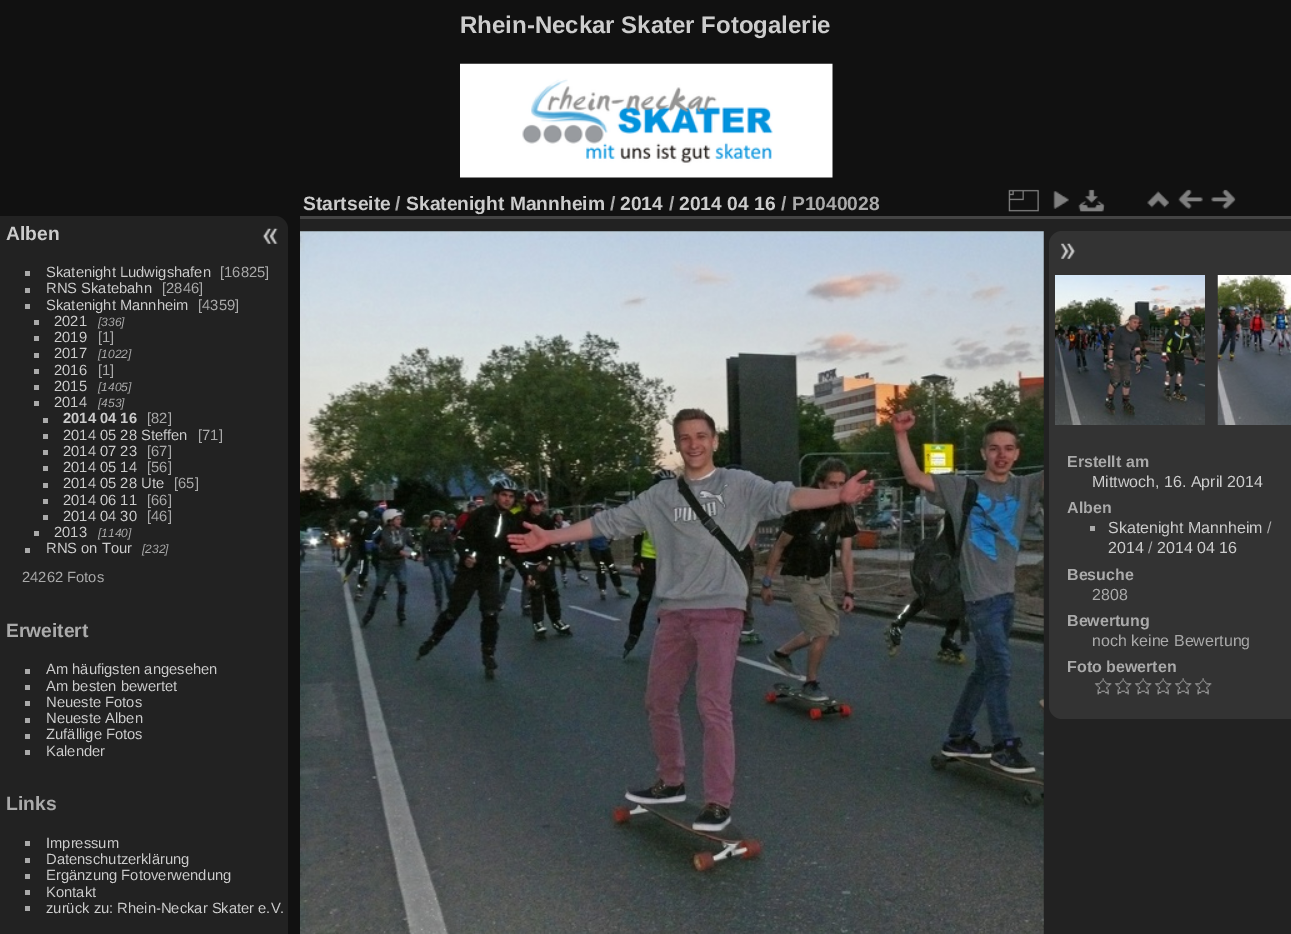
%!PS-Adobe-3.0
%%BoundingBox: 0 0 1291 934
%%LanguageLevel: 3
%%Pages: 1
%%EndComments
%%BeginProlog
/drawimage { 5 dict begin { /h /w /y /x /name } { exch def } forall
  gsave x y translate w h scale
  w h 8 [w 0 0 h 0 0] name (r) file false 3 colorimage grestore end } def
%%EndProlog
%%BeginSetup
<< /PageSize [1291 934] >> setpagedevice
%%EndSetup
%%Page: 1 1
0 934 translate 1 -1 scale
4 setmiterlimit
0.067 setgray
0 0 1291 934 rectfill
(images/1.raw) 460 63 373 115 drawimage
0.133 setgray
newpath 0 216 moveto 275 216 lineto 282 216 288 222 288 229 curveto 288 934 lineto 288 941 282 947 275 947 curveto 0 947 lineto closepath fill
0.667 setgray
25 271 5 5 rectfill
25 288 5 5 rectfill
25 304 5 5 rectfill
34 320 5 5 rectfill
34 336 5 5 rectfill
34 353 5 5 rectfill
34 369 5 5 rectfill
34 385 5 5 rectfill
34 401 5 5 rectfill
43 418 5 5 rectfill
43 434 5 5 rectfill
43 450 5 5 rectfill
43 466 5 5 rectfill
43 483 5 5 rectfill
43 499 5 5 rectfill
43 515 5 5 rectfill
34 531 5 5 rectfill
25 548 5 5 rectfill
25 669 5 5 rectfill
25 685 5 5 rectfill
25 701 5 5 rectfill
25 718 5 5 rectfill
25 734 5 5 rectfill
25 750 5 5 rectfill
25 841 5 5 rectfill
25 858 5 5 rectfill
25 874 5 5 rectfill
25 890 5 5 rectfill
25 906 5 5 rectfill
0.133 setgray
300 219 991 715 rectfill
0.267 setgray
300 216 991 3 rectfill
(images/2.raw) 1008 189 31 23 drawimage
(images/3.raw) 1053 191 16 18 drawimage
(images/4.raw) 1078 189 27 23 drawimage
(images/5.raw) 1147 191 22 17 drawimage
(images/6.raw) 1178 189 25 20 drawimage
(images/7.raw) 1211 189 25 20 drawimage
(images/8.raw) 300 231 744 703 drawimage
0.2 setgray
newpath 1062 231 moveto 1291 231 lineto 1291 719 lineto 1062 719 lineto 1055 719 1049 713 1049 706 curveto 1049 244 lineto 1049 237 1055 231 1062 231 curveto closepath fill
(images/9.raw) 1060 243 16 16 drawimage
(images/10.raw) 1055 275 150 150 drawimage
(images/11.raw) 1217 275 74 150 drawimage
0.667 setgray
1090 526 5 5 rectfill
(images/12.raw) 1094 678 18 17 drawimage
(images/12.raw) 1114 678 18 17 drawimage
(images/12.raw) 1134 678 18 17 drawimage
(images/12.raw) 1154 678 18 17 drawimage
(images/12.raw) 1174 678 18 17 drawimage
(images/13.raw) 1194 678 18 17 drawimage
(images/14.raw) 262 228 16 16 drawimage
/LiberationSans-Bold [24 0 0 -24 0 0] selectfont
0.8 setgray
460 33 moveto (Rhein-Neckar Skater Fotogalerie) show
/LiberationSans-Bold [19.25 0 0 -19.25 0 0] selectfont
6 240 moveto (Alben) show
/LiberationSans-Regular [14.75 0 0 -14.75 0 0] selectfont
46 277 moveto (Skatenight Ludwigshafen) show
0.667 setgray
220 277 moveto ([16825]) show
0.8 setgray
46 293 moveto (RNS Skatebahn) show
0.667 setgray
162 293 moveto ([2846]) show
0.8 setgray
46 310 moveto (Skatenight Mannheim) show
0.667 setgray
198 310 moveto ([4359]) show
0.8 setgray
54 326 moveto (2021) show
/LiberationSans-Italic [12 0 0 -12 0 0] selectfont
0.667 setgray
98 326 moveto ([336]) show
/LiberationSans-Regular [14.75 0 0 -14.75 0 0] selectfont
0.8 setgray
54 342 moveto (2019) show
0.667 setgray
98 342 moveto ([1]) show
0.8 setgray
54 358 moveto (2017) show
/LiberationSans-Italic [12 0 0 -12 0 0] selectfont
0.667 setgray
98 358 moveto ([1022]) show
/LiberationSans-Regular [14.75 0 0 -14.75 0 0] selectfont
0.8 setgray
54 375 moveto (2016) show
0.667 setgray
98 375 moveto ([1]) show
0.8 setgray
54 391 moveto (2015) show
/LiberationSans-Italic [12 0 0 -12 0 0] selectfont
0.667 setgray
98 391 moveto ([1405]) show
/LiberationSans-Regular [14.75 0 0 -14.75 0 0] selectfont
0.8 setgray
54 407 moveto (2014) show
/LiberationSans-Italic [12 0 0 -12 0 0] selectfont
0.667 setgray
98 407 moveto ([453]) show
/LiberationSans-Bold [14.75 0 0 -14.75 0 0] selectfont
0.8 setgray
63 423 moveto (2014 04 16) show
/LiberationSans-Regular [14.75 0 0 -14.75 0 0] selectfont
0.667 setgray
147 423 moveto ([82]) show
0.8 setgray
63 440 moveto (2014 05 28 Steffen) show
0.667 setgray
198 440 moveto ([71]) show
0.8 setgray
63 456 moveto (2014 07 23) show
0.667 setgray
147 456 moveto ([67]) show
0.8 setgray
63 472 moveto (2014 05 14) show
0.667 setgray
147 472 moveto ([56]) show
0.8 setgray
63 488 moveto (2014 05 28 Ute) show
0.667 setgray
174 488 moveto ([65]) show
0.8 setgray
63 505 moveto (2014 06 11) show
0.667 setgray
147 505 moveto ([66]) show
0.8 setgray
63 521 moveto (2014 04 30) show
0.667 setgray
147 521 moveto ([46]) show
0.8 setgray
54 537 moveto (2013) show
/LiberationSans-Italic [12 0 0 -12 0 0] selectfont
0.667 setgray
98 537 moveto ([1140]) show
/LiberationSans-Regular [14.75 0 0 -14.75 0 0] selectfont
0.8 setgray
46 553 moveto (RNS on Tour) show
/LiberationSans-Italic [12 0 0 -12 0 0] selectfont
0.667 setgray
142 553 moveto ([232]) show
/LiberationSans-Regular [14.75 0 0 -14.75 0 0] selectfont
22 582 moveto (24262 Fotos) show
/LiberationSans-Bold [19.25 0 0 -19.25 0 0] selectfont
6 637 moveto (Erweitert) show
/LiberationSans-Regular [14.75 0 0 -14.75 0 0] selectfont
0.8 setgray
46 674 moveto (Am häufigsten angesehen) show
46 691 moveto (Am besten bewertet) show
46 707 moveto (Neueste Fotos) show
46 723 moveto (Neueste Alben) show
46 739 moveto (Zufällige Fotos) show
46 756 moveto (Kalender) show
/LiberationSans-Bold [19.25 0 0 -19.25 0 0] selectfont
0.667 setgray
6 810 moveto (Links) show
/LiberationSans-Regular [14.75 0 0 -14.75 0 0] selectfont
0.8 setgray
46 848 moveto (Impressum) show
46 864 moveto (Datenschutzerklärung) show
46 880 moveto (Ergänzung Fotoverwendung) show
46 897 moveto (Kontakt) show
46 913 moveto (zurück zu: Rhein-Neckar Skater e.V.) show
/LiberationSans-Bold [19.25 0 0 -19.25 0 0] selectfont
303 210 moveto (Startseite) show
0.667 setgray
395 210 moveto (/) show
0.8 setgray
406 210 moveto (Skatenight Mannheim) show
0.667 setgray
610 210 moveto (/) show
0.8 setgray
620 210 moveto (2014) show
0.667 setgray
669 210 moveto (/) show
0.8 setgray
679 210 moveto (2014 04 16) show
0.667 setgray
781 210 moveto (/ P1040028) show
/LiberationSans-Bold [16 0 0 -16 0 0] selectfont
1067 467 moveto (Erstellt am) show
/LiberationSans-Regular [16 0 0 -16 0 0] selectfont
0.8 setgray
1092 487 moveto (Mittwoch, 16. April 2014) show
/LiberationSans-Bold [16 0 0 -16 0 0] selectfont
0.667 setgray
1067 513 moveto (Alben) show
/LiberationSans-Regular [16 0 0 -16 0 0] selectfont
0.8 setgray
1108 533 moveto (Skatenight Mannheim) show
0.667 setgray
1267 533 moveto (/) show
0.8 setgray
1108 553 moveto (2014) show
0.667 setgray
1148 553 moveto (/) show
0.8 setgray
1157 553 moveto (2014 04 16) show
/LiberationSans-Bold [16 0 0 -16 0 0] selectfont
0.667 setgray
1067 580 moveto (Besuche) show
/LiberationSans-Regular [16 0 0 -16 0 0] selectfont
1092 600 moveto (2808) show
/LiberationSans-Bold [16 0 0 -16 0 0] selectfont
1067 626 moveto (Bewertung) show
/LiberationSans-Regular [16 0 0 -16 0 0] selectfont
1092 646 moveto (noch keine Bewertung) show
/LiberationSans-Bold [16 0 0 -16 0 0] selectfont
1067 672 moveto (Foto bewerten) show
showpage
%%EOF
